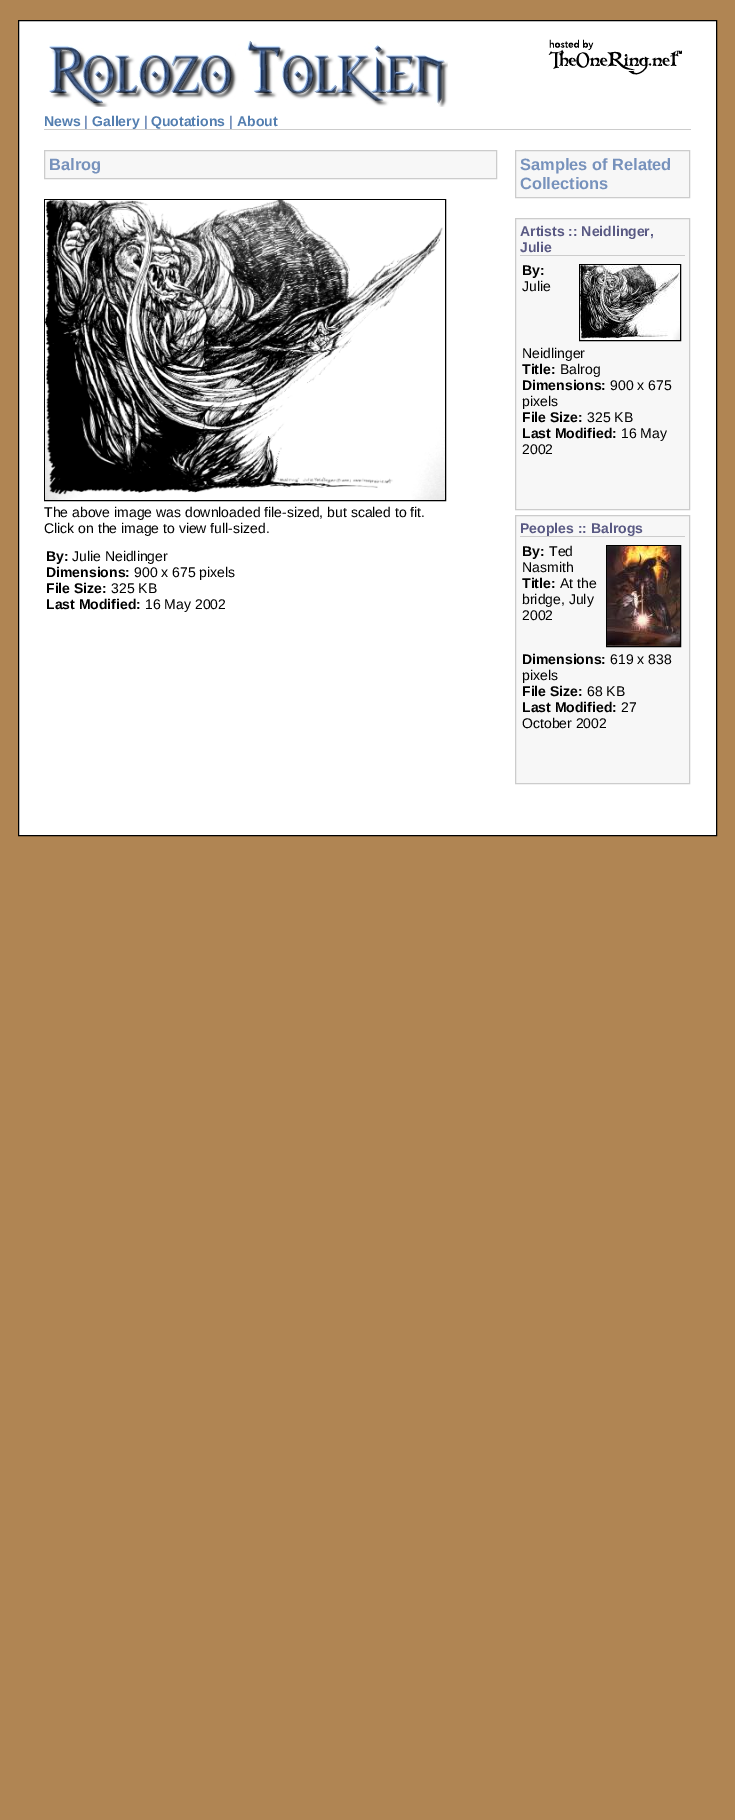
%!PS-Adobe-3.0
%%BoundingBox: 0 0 735 1820
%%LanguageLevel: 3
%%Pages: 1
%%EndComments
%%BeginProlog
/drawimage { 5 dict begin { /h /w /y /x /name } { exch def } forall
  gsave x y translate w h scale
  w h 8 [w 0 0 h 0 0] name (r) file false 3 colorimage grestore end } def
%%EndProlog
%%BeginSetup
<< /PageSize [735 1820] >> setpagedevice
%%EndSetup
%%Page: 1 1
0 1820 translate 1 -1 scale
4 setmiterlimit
0.69 0.522 0.325 setrgbcolor
0 0 735 1820 rectfill
1 setgray
newpath 18.5 20.5 moveto 716.5 20.5 lineto 716.5 835.5 lineto 18.5 835.5 lineto closepath gsave fill grestore
0 setgray
stroke
(images/1.raw) 49 40 399 67 drawimage
(images/2.raw) 548 39 134 36 drawimage
0.8 setgray
44 129 647 1 rectfill
0.969 setgray
newpath 44.5 150.5 moveto 496.5 150.5 lineto 496.5 178.5 lineto 44.5 178.5 lineto closepath gsave fill grestore
0.8 setgray
stroke
0 setgray
44.5 199.5 401 301 rectstroke
(images/3.raw) 45 200 400 300 drawimage
0.969 setgray
newpath 515.5 150.5 moveto 689.5 150.5 lineto 689.5 197.5 lineto 515.5 197.5 lineto closepath gsave fill grestore
0.8 setgray
stroke
0.969 setgray
newpath 515.5 218.5 moveto 689.5 218.5 lineto 689.5 509.5 lineto 515.5 509.5 lineto closepath gsave fill grestore
0.8 setgray
stroke
520 255 165 1 rectfill
0 setgray
579.5 264.5 101 76 rectstroke
(images/4.raw) 580 265 100 75 drawimage
0.969 setgray
newpath 515.5 515.5 moveto 689.5 515.5 lineto 689.5 783.5 lineto 515.5 783.5 lineto closepath gsave fill grestore
0.8 setgray
stroke
520 536 165 1 rectfill
0 setgray
606.5 545.5 74 101 rectstroke
(images/5.raw) 607 546 73 100 drawimage
/LiberationSans-Bold [14 0 0 -14 0 0] selectfont
0.325 0.494 0.69 setrgbcolor
44 126 moveto (News) show
0.467 0.573 0.737 setrgbcolor
84 126 moveto (|) show
0.325 0.494 0.69 setrgbcolor
92 126 moveto (Gallery) show
0.467 0.573 0.737 setrgbcolor
144 126 moveto (|) show
0.325 0.494 0.69 setrgbcolor
151 126 moveto (Quotations) show
0.467 0.573 0.737 setrgbcolor
229 126 moveto (|) show
0.325 0.494 0.69 setrgbcolor
237 126 moveto (About) show
/LiberationSans-Bold [16.4 0 0 -16.4 0 0] selectfont
0.467 0.573 0.737 setrgbcolor
49 170 moveto (Balrog) show
/LiberationSans-Regular [14 0 0 -14 0 0] selectfont
0 setgray
44 517 moveto (The above image was downloaded file-sized, but scaled to fit.) show
44 533 moveto (Click on the image to view full-sized.) show
/LiberationSans-Bold [14 0 0 -14 0 0] selectfont
46 561 moveto (By:) show
/LiberationSans-Regular [14 0 0 -14 0 0] selectfont
72 561 moveto (Julie Neidlinger) show
/LiberationSans-Bold [14 0 0 -14 0 0] selectfont
46 577 moveto (Dimensions:) show
/LiberationSans-Regular [14 0 0 -14 0 0] selectfont
134 577 moveto (900 x 675 pixels) show
/LiberationSans-Bold [14 0 0 -14 0 0] selectfont
46 593 moveto (File Size:) show
/LiberationSans-Regular [14 0 0 -14 0 0] selectfont
111 593 moveto (325 KB) show
/LiberationSans-Bold [14 0 0 -14 0 0] selectfont
46 609 moveto (Last Modified:) show
/LiberationSans-Regular [14 0 0 -14 0 0] selectfont
145 609 moveto (16 May 2002) show
/LiberationSans-Bold [16.4 0 0 -16.4 0 0] selectfont
0.467 0.573 0.737 setrgbcolor
520 170 moveto (Samples of Related) show
520 189 moveto (Collections) show
/LiberationSans-Bold [14 0 0 -14 0 0] selectfont
0.349 0.349 0.514 setrgbcolor
520 236 moveto (Artists :: Neidlinger,) show
520 252 moveto (Julie) show
0 setgray
522 275 moveto (By:) show
/LiberationSans-Regular [14 0 0 -14 0 0] selectfont
522 291 moveto (Julie) show
522 358 moveto (Neidlinger) show
/LiberationSans-Bold [14 0 0 -14 0 0] selectfont
522 374 moveto (Title:) show
/LiberationSans-Regular [14 0 0 -14 0 0] selectfont
560 374 moveto (Balrog) show
/LiberationSans-Bold [14 0 0 -14 0 0] selectfont
522 390 moveto (Dimensions:) show
/LiberationSans-Regular [14 0 0 -14 0 0] selectfont
610 390 moveto (900 x 675) show
522 406 moveto (pixels) show
/LiberationSans-Bold [14 0 0 -14 0 0] selectfont
522 422 moveto (File Size:) show
/LiberationSans-Regular [14 0 0 -14 0 0] selectfont
587 422 moveto (325 KB) show
/LiberationSans-Bold [14 0 0 -14 0 0] selectfont
522 438 moveto (Last Modified:) show
/LiberationSans-Regular [14 0 0 -14 0 0] selectfont
621 438 moveto (16 May) show
522 454 moveto (2002) show
/LiberationSans-Bold [14 0 0 -14 0 0] selectfont
0.349 0.349 0.514 setrgbcolor
520 533 moveto (Peoples :: Balrogs) show
0 setgray
522 556 moveto (By:) show
/LiberationSans-Regular [14 0 0 -14 0 0] selectfont
549 556 moveto (Ted) show
522 572 moveto (Nasmith) show
/LiberationSans-Bold [14 0 0 -14 0 0] selectfont
522 588 moveto (Title:) show
/LiberationSans-Regular [14 0 0 -14 0 0] selectfont
560 588 moveto (At the) show
522 604 moveto (bridge, July) show
522 620 moveto (2002) show
/LiberationSans-Bold [14 0 0 -14 0 0] selectfont
522 664 moveto (Dimensions:) show
/LiberationSans-Regular [14 0 0 -14 0 0] selectfont
610 664 moveto (619 x 838) show
522 680 moveto (pixels) show
/LiberationSans-Bold [14 0 0 -14 0 0] selectfont
522 696 moveto (File Size:) show
/LiberationSans-Regular [14 0 0 -14 0 0] selectfont
587 696 moveto (68 KB) show
/LiberationSans-Bold [14 0 0 -14 0 0] selectfont
522 712 moveto (Last Modified:) show
/LiberationSans-Regular [14 0 0 -14 0 0] selectfont
621 712 moveto (27) show
522 728 moveto (October 2002) show
showpage
%%EOF
